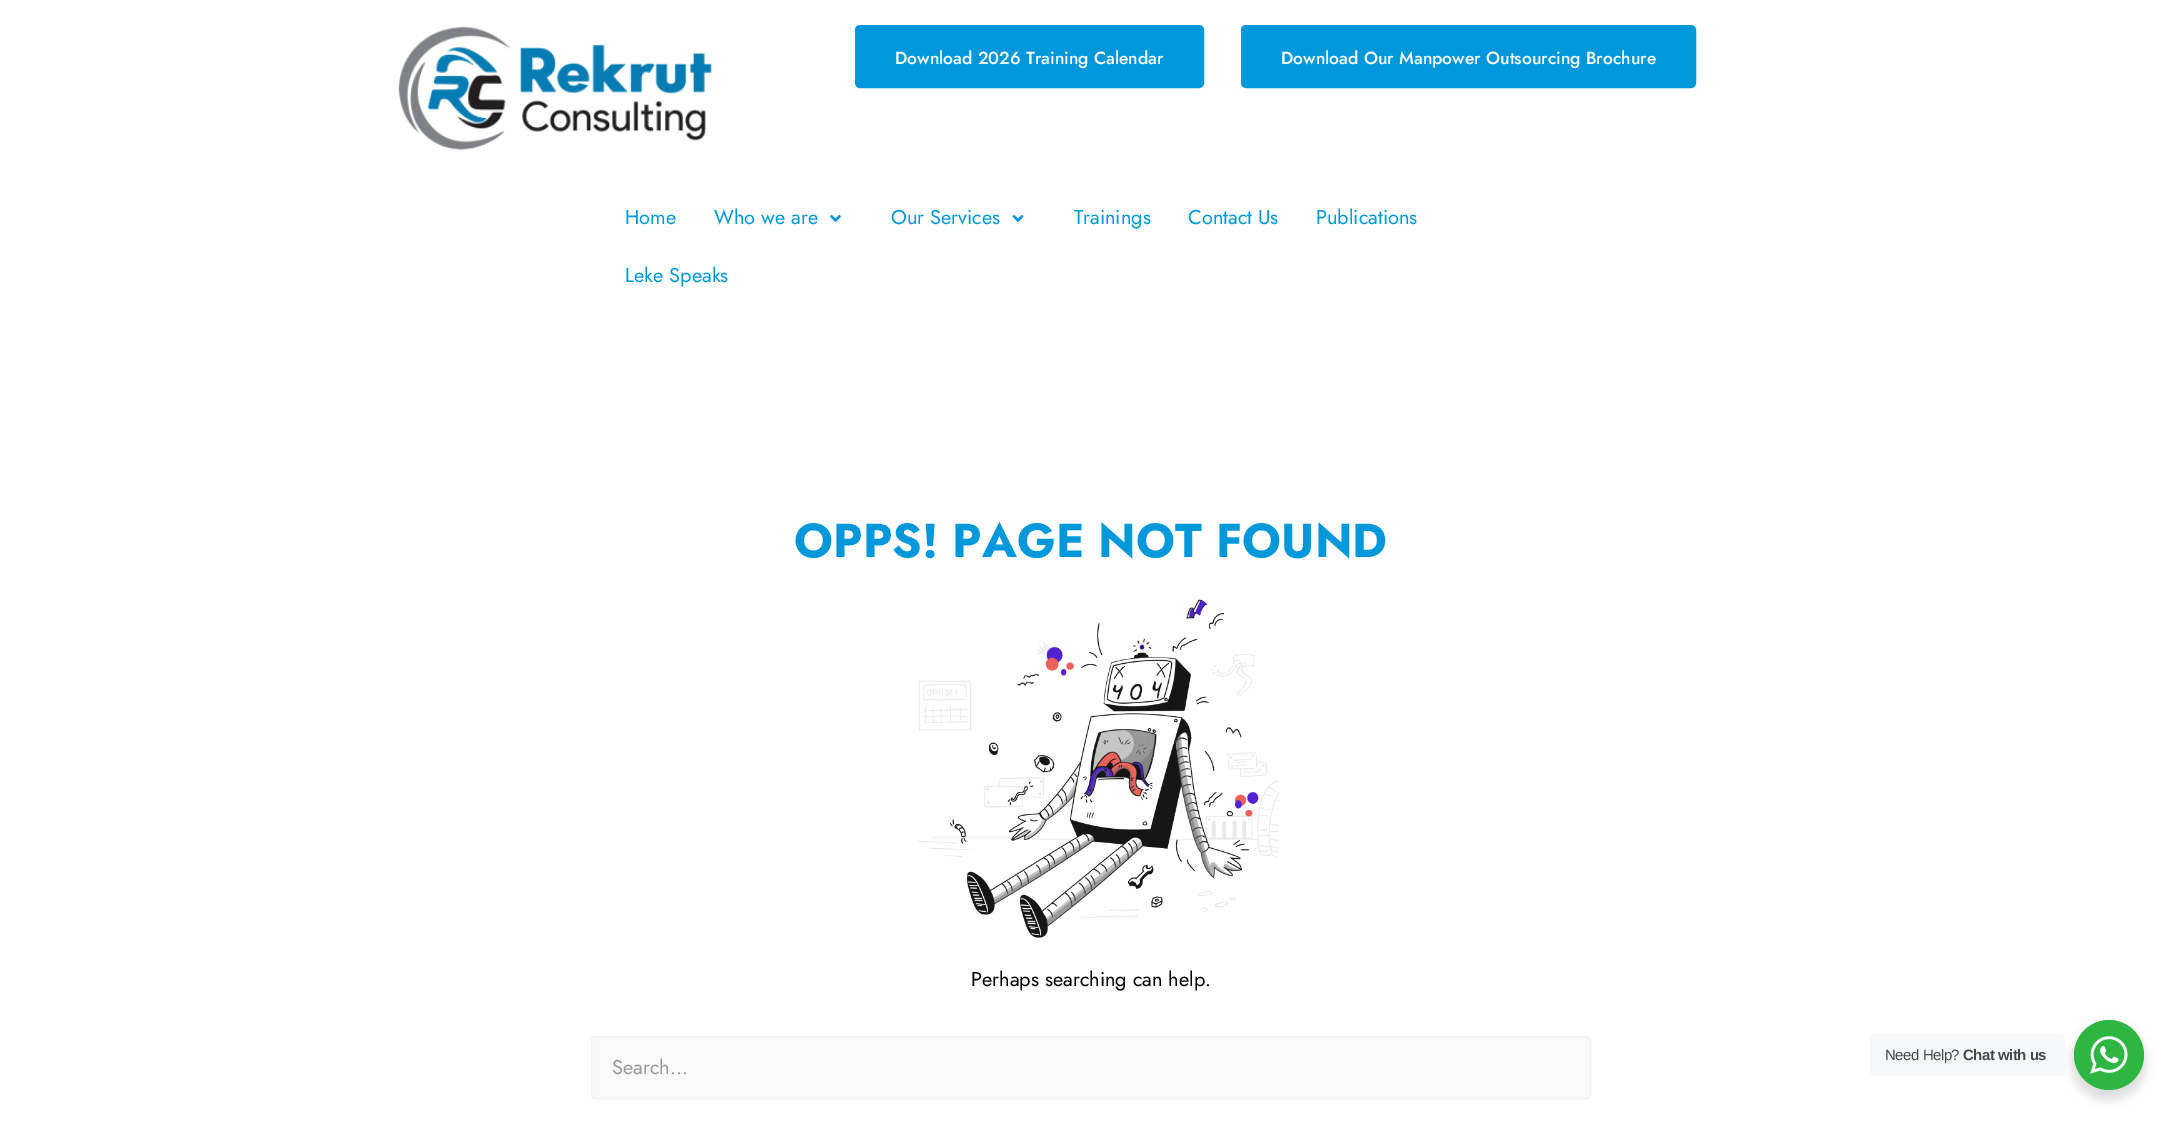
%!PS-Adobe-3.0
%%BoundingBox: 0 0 2181 1127
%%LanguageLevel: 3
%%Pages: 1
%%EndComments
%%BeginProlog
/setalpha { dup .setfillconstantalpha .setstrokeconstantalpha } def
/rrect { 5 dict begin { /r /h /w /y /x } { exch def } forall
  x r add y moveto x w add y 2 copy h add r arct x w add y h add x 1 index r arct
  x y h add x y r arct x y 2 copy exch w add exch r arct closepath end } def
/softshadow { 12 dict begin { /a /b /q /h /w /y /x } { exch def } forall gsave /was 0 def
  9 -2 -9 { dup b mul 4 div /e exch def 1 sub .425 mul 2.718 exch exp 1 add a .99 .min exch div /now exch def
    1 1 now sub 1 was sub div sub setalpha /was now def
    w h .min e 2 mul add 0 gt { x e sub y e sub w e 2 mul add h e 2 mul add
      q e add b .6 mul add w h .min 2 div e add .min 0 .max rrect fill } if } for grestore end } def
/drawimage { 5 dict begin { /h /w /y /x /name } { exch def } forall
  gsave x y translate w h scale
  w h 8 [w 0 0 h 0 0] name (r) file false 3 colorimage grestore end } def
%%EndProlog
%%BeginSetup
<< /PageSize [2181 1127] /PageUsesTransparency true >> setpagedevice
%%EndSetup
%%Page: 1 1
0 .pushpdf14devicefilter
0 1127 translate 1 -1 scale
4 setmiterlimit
1 setgray
0 0 2181 1127 rectfill
(images/1.raw) 398 26 314 125 drawimage
0 0.596 0.855 setrgbcolor
856.5 26.5 346 60 3.5 rrect gsave fill grestore
3 setlinewidth
stroke
1242.5 26.5 452 60 3.5 rrect gsave fill grestore
stroke
(images/2.raw) 830 215 11 7 drawimage
(images/3.raw) 1012 215 12 7 drawimage
(images/4.raw) 917 599 362 339 drawimage
0.976 setgray
591.5 1036.5 999 62 3.5 rrect gsave fill grestore
0.945 setgray
1 setlinewidth
stroke
0 setgray
2071 1025 75 75 37.5 5 0.14 softshadow
0.961 0.969 0.976 setrgbcolor
1870 1034 195 42 5 rrect fill
0.176 0.718 0.259 setrgbcolor
newpath 2109 1055 35 0 360 arc closepath fill
(images/5.raw) 2090 1036 38 38 drawimage
/Jost-Medium [17.5 0 0 -17.5 0 0] selectfont
1 setgray
895 64 moveto (Download 2026 Training Calendar) show
1281 64 moveto (Download Our Manpower Outsourcing Brochure) show
/Jost-Regular [20 0 0 -20 0 0] selectfont
0 0.596 0.855 setrgbcolor
625 224 moveto (Home) show
714 224 moveto (Who we are) show
891 224 moveto (Our Services) show
1074 224 moveto (Trainings) show
1188 224 moveto (Contact Us) show
1316 224 moveto (Publications) show
625 282 moveto (Leke Speaks) show
/Jost-Bold [47.5 0 0 -47.5 0 0] selectfont
794 557 moveto (OPPS! PAGE NOT FOUND) show
/Jost-Regular [20 0 0 -20 0 0] selectfont
0 setgray
971 986 moveto (Perhaps searching can help.) show
0.6 setgray
612 1074 moveto (Search...) show
/LiberationSans-Regular [15 0 0 -15 0 0] selectfont
0.263 0.278 0.306 setrgbcolor
1885 1060 moveto -0.5 0 (Need Help?) ashow
/LiberationSans-Bold [15 0 0 -15 0 0] selectfont
1963 1060 moveto -0.5 0 (Chat with us) ashow
.poppdf14devicefilter showpage
%%EOF
